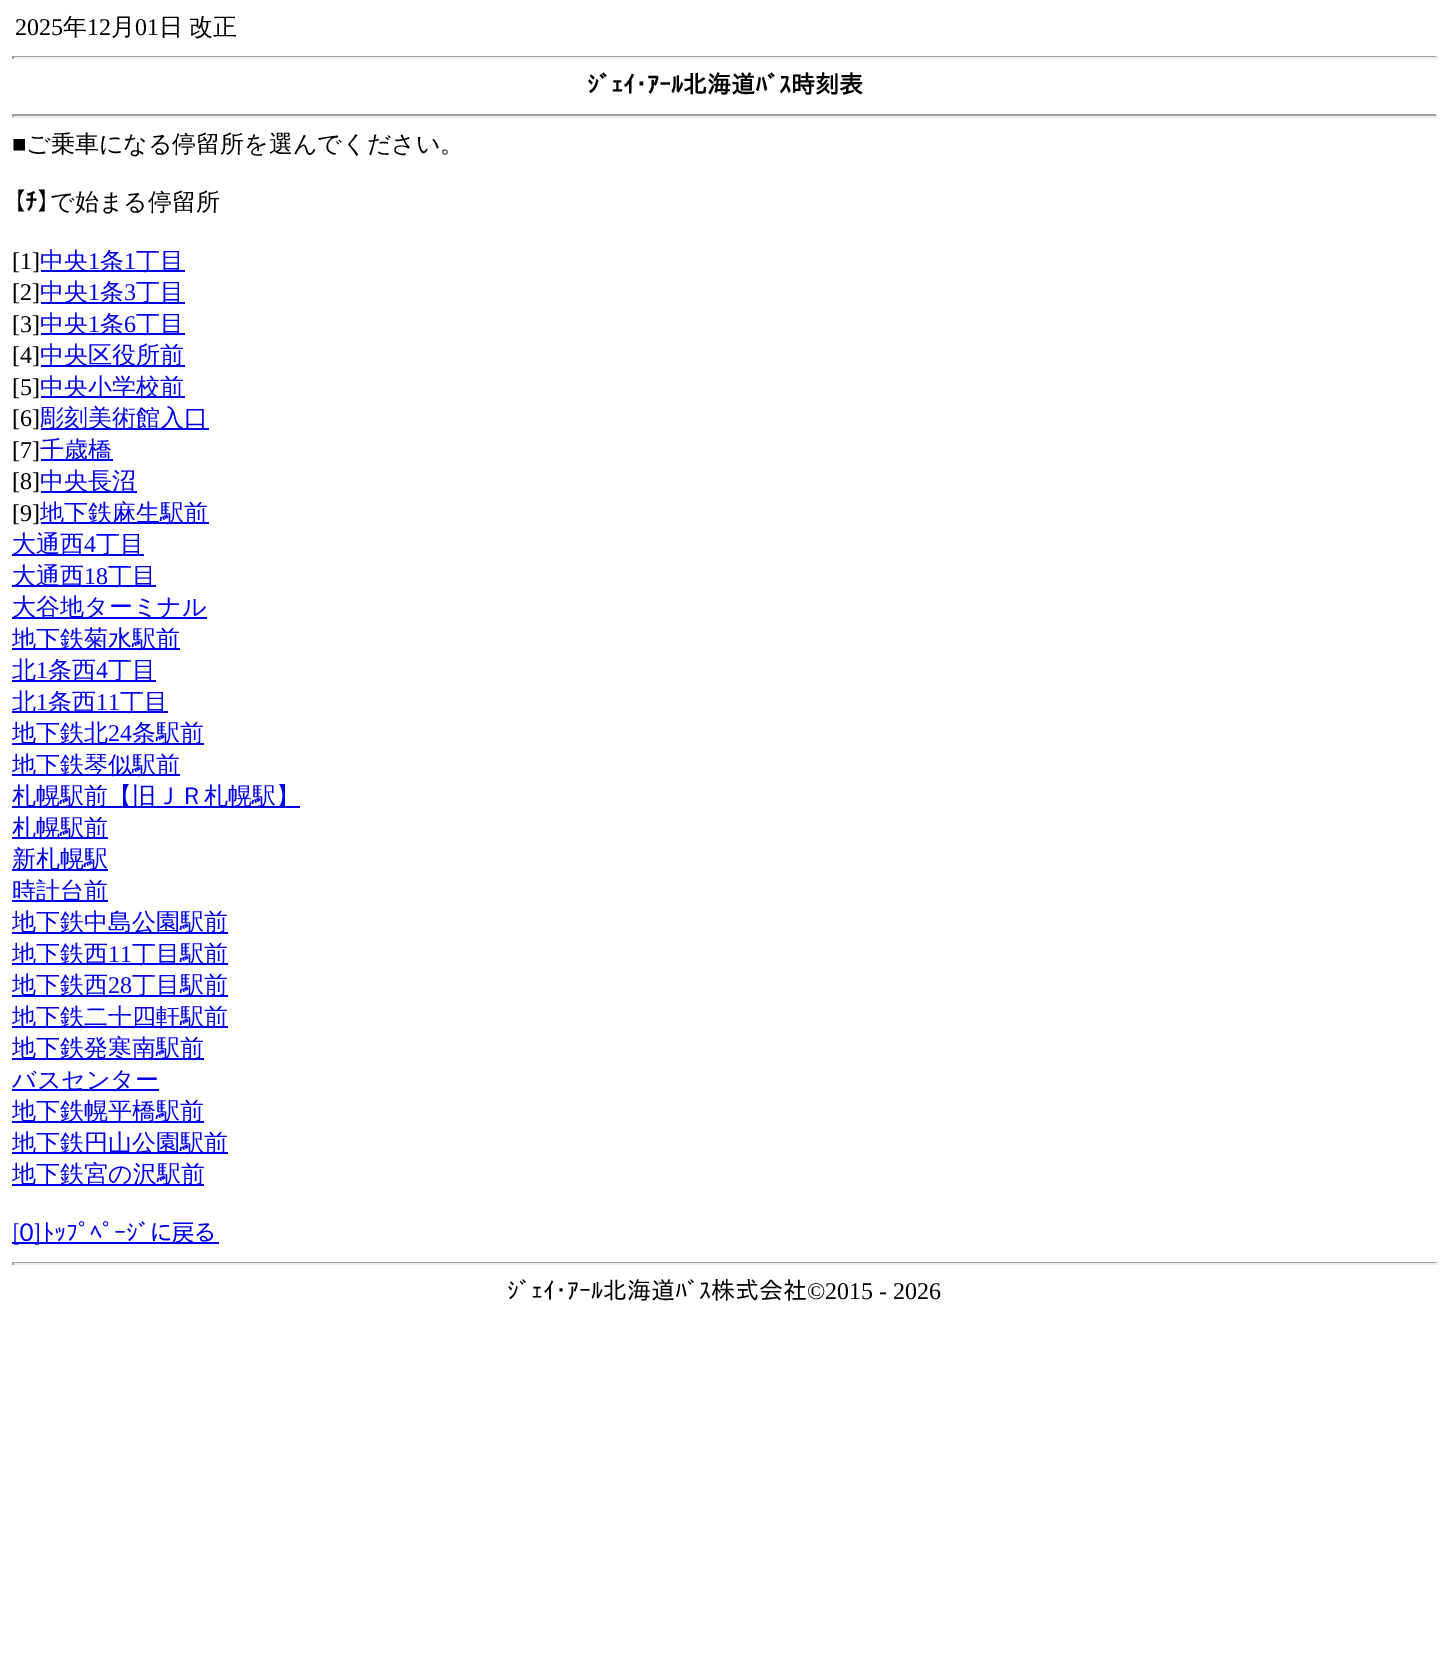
%!PS-Adobe-3.0
%%BoundingBox: 0 0 1449 1658
%%LanguageLevel: 3
%%Pages: 1
%%EndComments
%%BeginProlog
%%EndProlog
%%BeginSetup
<< /PageSize [1449 1658] >> setpagedevice
%%EndSetup
%%Page: 1 1
0 1658 translate 1 -1 scale
4 setmiterlimit
1 setgray
0 0 1449 1658 rectfill
0.624 setgray
12 56 1425 1 rectfill
0.933 setgray
1436 56 2 3 rectfill
12 57 1425 2 rectfill
0.624 setgray
12 56 2 3 rectfill
12 114 1425 2 rectfill
0.933 setgray
1436 114 2 3 rectfill
12 116 1425 2 rectfill
0.624 setgray
12 114 2 3 rectfill
0 0 0.933 setrgbcolor
41 270 144 2 rectfill
41 302 144 2 rectfill
41 333 144 2 rectfill
41 365 144 2 rectfill
41 396 144 2 rectfill
41 428 168 2 rectfill
41 459 72 2 rectfill
41 491 96 2 rectfill
41 522 168 2 rectfill
12 554 132 2 rectfill
12 585 144 2 rectfill
12 617 195 2 rectfill
12 648 168 2 rectfill
12 680 144 2 rectfill
12 711 156 2 rectfill
12 743 192 2 rectfill
12 774 168 2 rectfill
12 806 288 2 rectfill
12 837 96 2 rectfill
12 869 96 2 rectfill
12 900 96 2 rectfill
12 932 216 2 rectfill
12 963 216 2 rectfill
12 995 216 2 rectfill
12 1026 216 2 rectfill
12 1058 192 2 rectfill
12 1089 147 2 rectfill
12 1121 192 2 rectfill
12 1152 216 2 rectfill
12 1184 192 2 rectfill
12 1242 207 2 rectfill
0.624 setgray
12 1262 1425 1 rectfill
0.933 setgray
1436 1262 2 3 rectfill
12 1263 1425 2 rectfill
0.624 setgray
12 1262 2 3 rectfill
/LiberationSerif-Regular [24 0 0 -24 0 0] selectfont
0 setgray
15 35 moveto (2025) show
/WenQuanYiZenHei-Medium [24 0 0 -24 0 0] selectfont
63 35 moveto (年) show
/LiberationSerif-Regular [24 0 0 -24 0 0] selectfont
87 35 moveto (12) show
/WenQuanYiZenHei-Medium [24 0 0 -24 0 0] selectfont
111 35 moveto (月) show
/LiberationSerif-Regular [24 0 0 -24 0 0] selectfont
135 35 moveto (01) show
/WenQuanYiZenHei-Medium [24 0 0 -24 0 0] selectfont
159 35 moveto -1 0 32 (日 改正) widthshow
/IPAPGothic-Bold [24 0 0 -24 0 0] selectfont
587 93 moveto (ｼﾞｪｲ･ｱｰﾙ北海道ﾊﾞｽ時刻表) show
/LiberationSerif-Regular [24 0 0 -24 0 0] selectfont
12 152 moveto (■) show
/WenQuanYiZenHei-Medium [24 0 0 -24 0 0] selectfont
26 152 moveto (ご乗車になる停留所を選んでください。) show
/IPAPGothic-Bold [24 0 0 -24 0 0] selectfont
12 210 moveto (【ﾁ】) show
/WenQuanYiZenHei-Medium [24 0 0 -24 0 0] selectfont
50 210 moveto (で始まる停留所) show
/LiberationSerif-Regular [24 0 0 -24 0 0] selectfont
12 269 moveto ([1]) show
/WenQuanYiZenHei-Medium [24 0 0 -24 0 0] selectfont
0 0 0.933 setrgbcolor
40 269 moveto (中央) show
/LiberationSerif-Regular [24 0 0 -24 0 0] selectfont
88 269 moveto (1) show
/WenQuanYiZenHei-Medium [24 0 0 -24 0 0] selectfont
100 269 moveto (条) show
/LiberationSerif-Regular [24 0 0 -24 0 0] selectfont
124 269 moveto (1) show
/WenQuanYiZenHei-Medium [24 0 0 -24 0 0] selectfont
136 269 moveto (丁目) show
/LiberationSerif-Regular [24 0 0 -24 0 0] selectfont
0 setgray
12 300 moveto ([2]) show
/WenQuanYiZenHei-Medium [24 0 0 -24 0 0] selectfont
0 0 0.933 setrgbcolor
40 300 moveto (中央) show
/LiberationSerif-Regular [24 0 0 -24 0 0] selectfont
88 300 moveto (1) show
/WenQuanYiZenHei-Medium [24 0 0 -24 0 0] selectfont
100 300 moveto (条) show
/LiberationSerif-Regular [24 0 0 -24 0 0] selectfont
124 300 moveto (3) show
/WenQuanYiZenHei-Medium [24 0 0 -24 0 0] selectfont
136 300 moveto (丁目) show
/LiberationSerif-Regular [24 0 0 -24 0 0] selectfont
0 setgray
12 332 moveto ([3]) show
/WenQuanYiZenHei-Medium [24 0 0 -24 0 0] selectfont
0 0 0.933 setrgbcolor
40 332 moveto (中央) show
/LiberationSerif-Regular [24 0 0 -24 0 0] selectfont
88 332 moveto (1) show
/WenQuanYiZenHei-Medium [24 0 0 -24 0 0] selectfont
100 332 moveto (条) show
/LiberationSerif-Regular [24 0 0 -24 0 0] selectfont
124 332 moveto (6) show
/WenQuanYiZenHei-Medium [24 0 0 -24 0 0] selectfont
136 332 moveto (丁目) show
/LiberationSerif-Regular [24 0 0 -24 0 0] selectfont
0 setgray
12 363 moveto ([4]) show
/WenQuanYiZenHei-Medium [24 0 0 -24 0 0] selectfont
0 0 0.933 setrgbcolor
40 363 moveto (中央区役所前) show
/LiberationSerif-Regular [24 0 0 -24 0 0] selectfont
0 setgray
12 395 moveto ([5]) show
/WenQuanYiZenHei-Medium [24 0 0 -24 0 0] selectfont
0 0 0.933 setrgbcolor
40 395 moveto (中央小学校前) show
/LiberationSerif-Regular [24 0 0 -24 0 0] selectfont
0 setgray
12 426 moveto ([6]) show
/WenQuanYiZenHei-Medium [24 0 0 -24 0 0] selectfont
0 0 0.933 setrgbcolor
40 426 moveto (彫刻美術館入口) show
/LiberationSerif-Regular [24 0 0 -24 0 0] selectfont
0 setgray
12 458 moveto ([7]) show
/WenQuanYiZenHei-Medium [24 0 0 -24 0 0] selectfont
0 0 0.933 setrgbcolor
40 458 moveto (千歳橋) show
/LiberationSerif-Regular [24 0 0 -24 0 0] selectfont
0 setgray
12 489 moveto ([8]) show
/WenQuanYiZenHei-Medium [24 0 0 -24 0 0] selectfont
0 0 0.933 setrgbcolor
40 489 moveto (中央長沼) show
/LiberationSerif-Regular [24 0 0 -24 0 0] selectfont
0 setgray
12 521 moveto ([9]) show
/WenQuanYiZenHei-Medium [24 0 0 -24 0 0] selectfont
0 0 0.933 setrgbcolor
40 521 moveto (地下鉄麻生駅前) show
12 552 moveto (大通西) show
/LiberationSerif-Regular [24 0 0 -24 0 0] selectfont
84 552 moveto (4) show
/WenQuanYiZenHei-Medium [24 0 0 -24 0 0] selectfont
96 552 moveto (丁目) show
12 584 moveto (大通西) show
/LiberationSerif-Regular [24 0 0 -24 0 0] selectfont
84 584 moveto (18) show
/WenQuanYiZenHei-Medium [24 0 0 -24 0 0] selectfont
108 584 moveto (丁目) show
12 615 moveto (大谷地ターミナル) show
12 647 moveto (地下鉄菊水駅前) show
12 678 moveto (北) show
/LiberationSerif-Regular [24 0 0 -24 0 0] selectfont
36 678 moveto (1) show
/WenQuanYiZenHei-Medium [24 0 0 -24 0 0] selectfont
48 678 moveto (条西) show
/LiberationSerif-Regular [24 0 0 -24 0 0] selectfont
96 678 moveto (4) show
/WenQuanYiZenHei-Medium [24 0 0 -24 0 0] selectfont
108 678 moveto (丁目) show
12 710 moveto (北) show
/LiberationSerif-Regular [24 0 0 -24 0 0] selectfont
36 710 moveto (1) show
/WenQuanYiZenHei-Medium [24 0 0 -24 0 0] selectfont
48 710 moveto (条西) show
/LiberationSerif-Regular [24 0 0 -24 0 0] selectfont
96 710 moveto (11) show
/WenQuanYiZenHei-Medium [24 0 0 -24 0 0] selectfont
120 710 moveto (丁目) show
12 741 moveto (地下鉄北) show
/LiberationSerif-Regular [24 0 0 -24 0 0] selectfont
108 741 moveto (24) show
/WenQuanYiZenHei-Medium [24 0 0 -24 0 0] selectfont
132 741 moveto (条駅前) show
12 773 moveto (地下鉄琴似駅前) show
12 804 moveto (札幌駅前【旧ＪＲ札幌駅】) show
12 836 moveto (札幌駅前) show
12 867 moveto (新札幌駅) show
12 899 moveto (時計台前) show
12 930 moveto (地下鉄中島公園駅前) show
12 962 moveto (地下鉄西) show
/LiberationSerif-Regular [24 0 0 -24 0 0] selectfont
108 962 moveto (11) show
/WenQuanYiZenHei-Medium [24 0 0 -24 0 0] selectfont
132 962 moveto (丁目駅前) show
12 993 moveto (地下鉄西) show
/LiberationSerif-Regular [24 0 0 -24 0 0] selectfont
108 993 moveto (28) show
/WenQuanYiZenHei-Medium [24 0 0 -24 0 0] selectfont
132 993 moveto (丁目駅前) show
12 1025 moveto (地下鉄二十四軒駅前) show
12 1056 moveto (地下鉄発寒南駅前) show
12 1088 moveto (バスセンター) show
12 1119 moveto (地下鉄幌平橋駅前) show
12 1151 moveto (地下鉄円山公園駅前) show
12 1182 moveto (地下鉄宮の沢駅前) show
/IPAPGothic-Regular [24 0 0 -24 0 0] selectfont
12 1241 moveto ([0]ﾄｯﾌﾟﾍﾟｰｼﾞに戻る) show
0 setgray
507 1299 moveto (ｼﾞｪｲ･ｱｰﾙ北海道ﾊﾞｽ株式会社) show
/LiberationSerif-Regular [24 0 0 -24 0 0] selectfont
807 1299 moveto (©2015 - 2026) show
showpage
%%EOF
